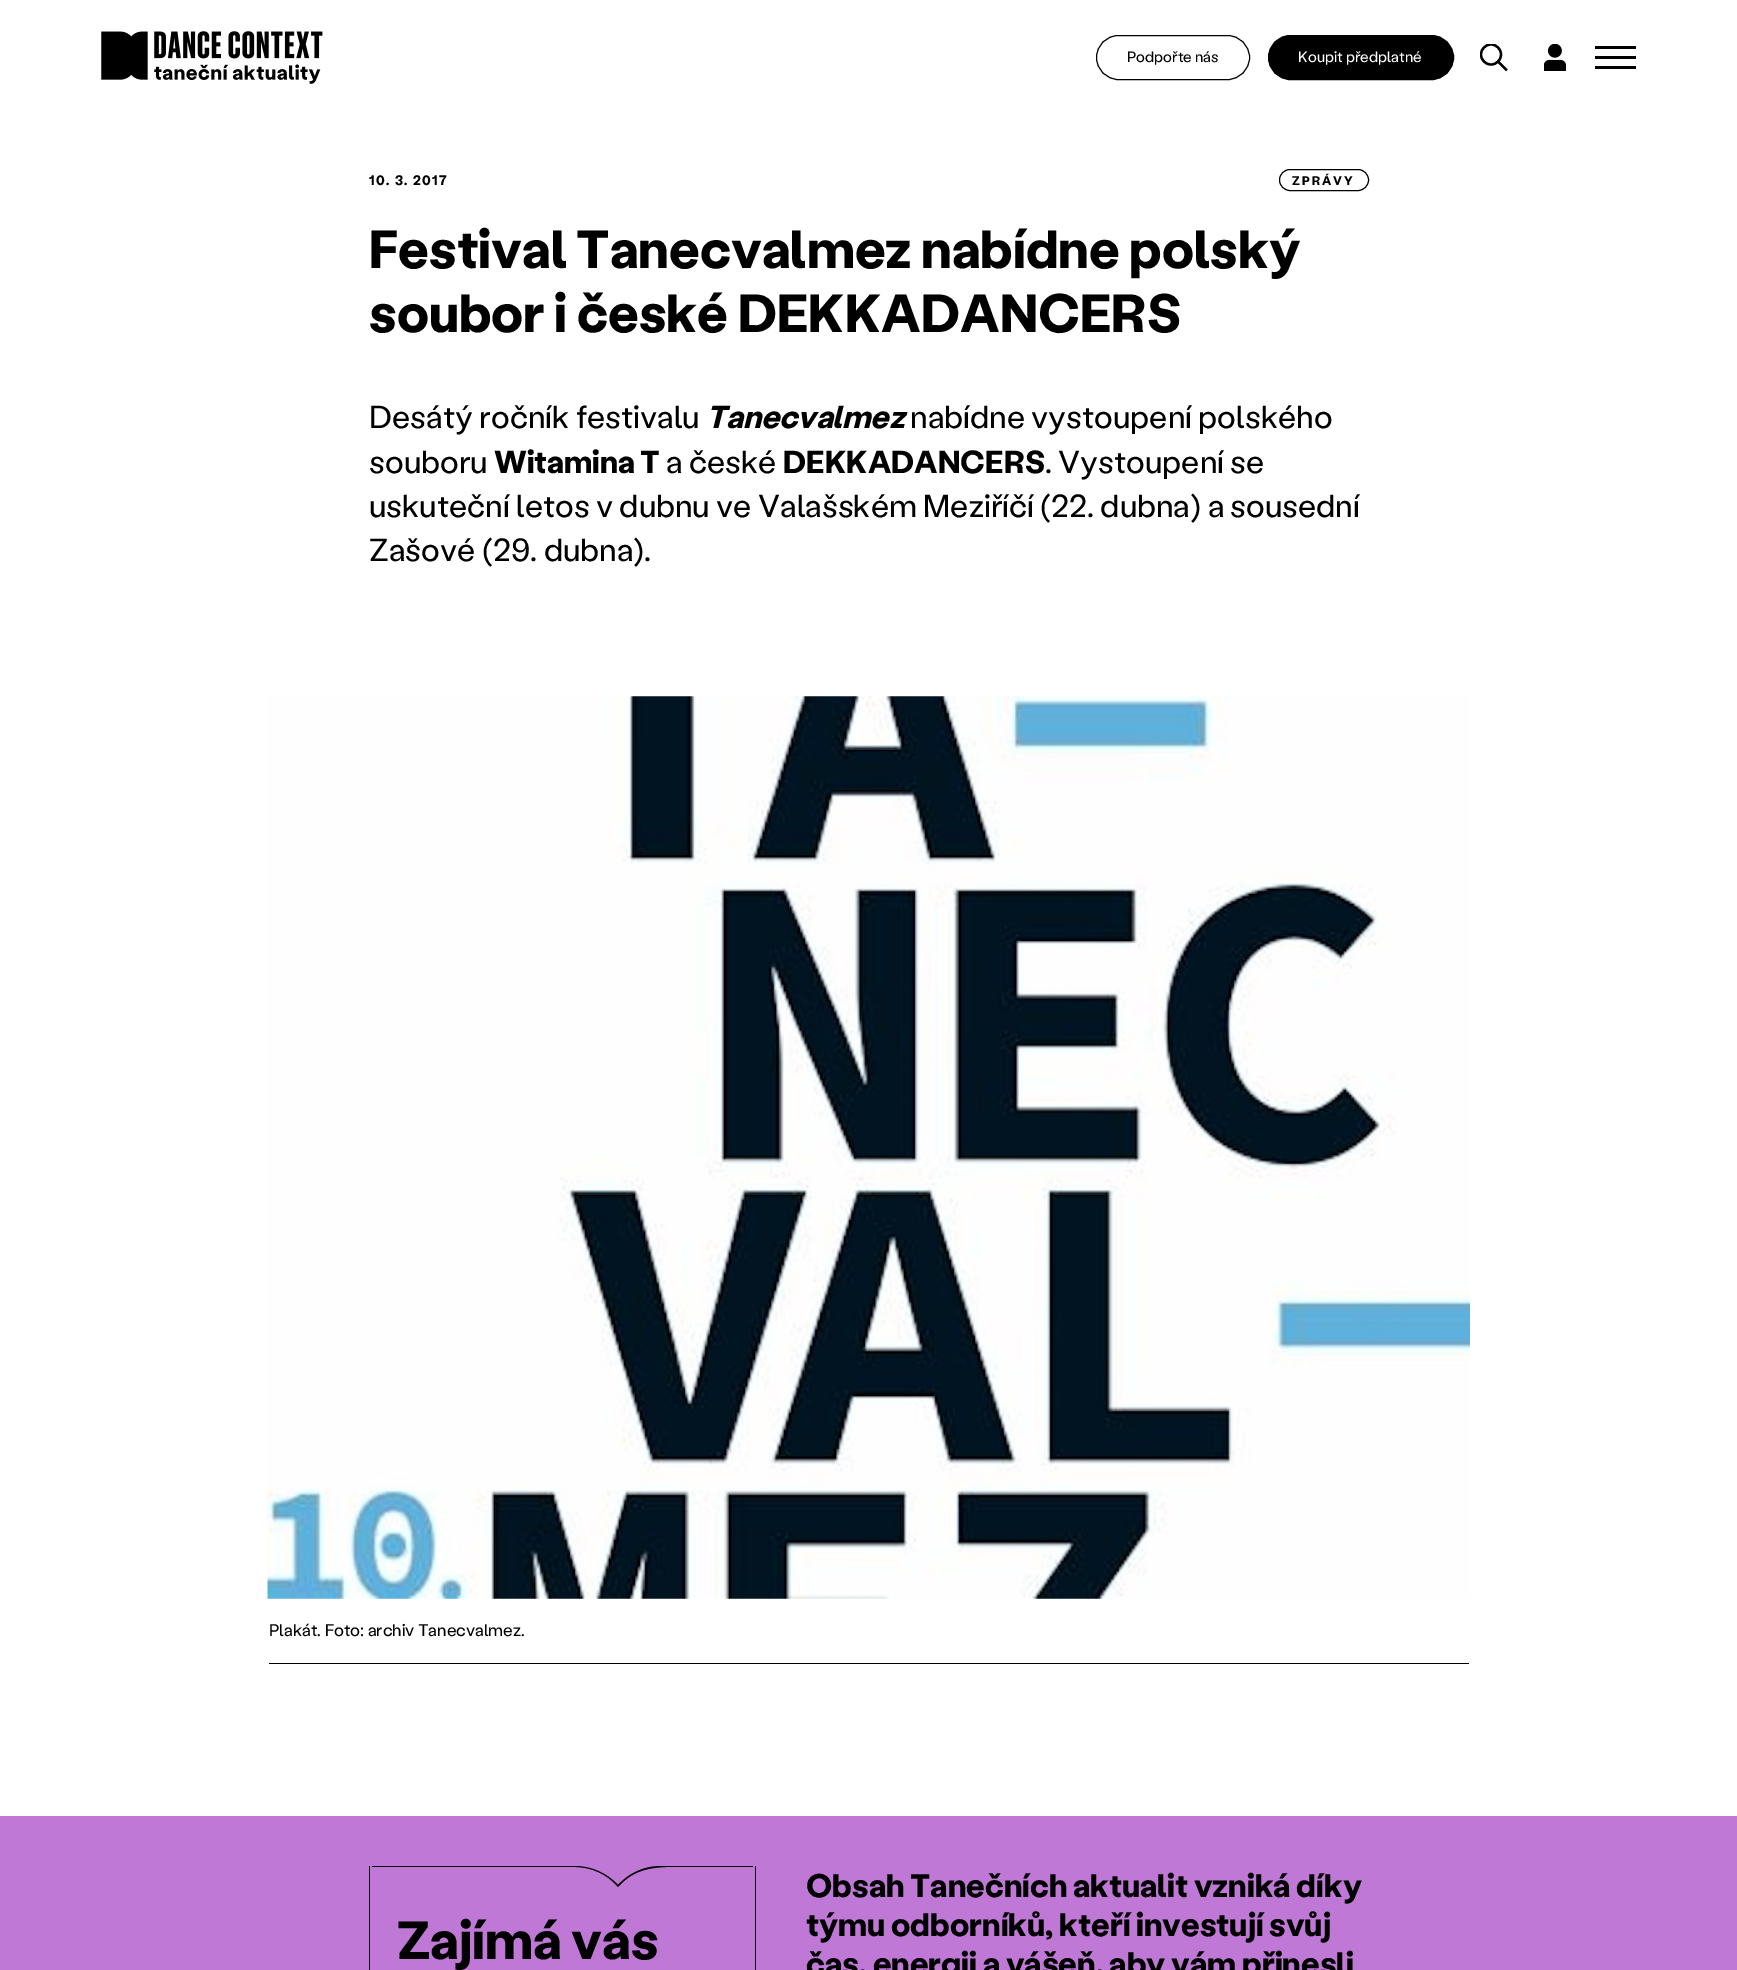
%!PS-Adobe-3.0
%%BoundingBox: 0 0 1737 1970
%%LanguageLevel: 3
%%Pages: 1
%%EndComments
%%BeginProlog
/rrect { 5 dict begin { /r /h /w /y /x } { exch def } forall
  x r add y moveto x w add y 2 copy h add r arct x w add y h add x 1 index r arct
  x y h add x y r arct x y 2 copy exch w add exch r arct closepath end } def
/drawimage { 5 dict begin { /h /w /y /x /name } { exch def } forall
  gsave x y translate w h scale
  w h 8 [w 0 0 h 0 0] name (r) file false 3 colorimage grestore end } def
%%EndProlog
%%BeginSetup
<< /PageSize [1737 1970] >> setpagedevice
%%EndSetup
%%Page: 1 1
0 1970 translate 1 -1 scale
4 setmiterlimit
1 setgray
0 0 1737 1970 rectfill
(images/1.raw) 101 31 222 53 drawimage
0 setgray
1096.5 35.5 153 44 22 rrect stroke
1268.5 35.5 185 44 22 rrect gsave fill grestore
stroke
gsave
1480 44 28 27 rectclip
2.3 setlinewidth
newpath 1491 54.5 10 0 360 arc closepath stroke
grestore
2.3 setlinewidth
2 setlinecap
1 setlinejoin
newpath 1499 62.5 moveto 1506 69.5 lineto stroke
(images/2.raw) 1544 44 22 27 drawimage
1595 46 41 3 rectfill
1595 56 41 3 rectfill
1595 66 41 3 rectfill
1 setlinewidth
0 setlinecap
0 setlinejoin
1279.5 169.5 89 21 10.5 rrect stroke
(images/3.raw) 267 696 1203 903 drawimage
269 1663 1200 1 rectfill
0.753 0.471 0.839 setrgbcolor
0 1816 1737 154 rectfill
0 setgray
newpath 618 1887 moveto 617 1886 lineto 607 1874 591 1867 575 1867 curveto 372 1867 lineto 372 1866 lineto 575 1866 lineto 591 1866 607 1873 618 1885 curveto 629 1873 644 1866 661 1866 curveto 753 1866 lineto 753 1867 lineto 691 1867 lineto 663 1867 638 1864 618 1887 curveto closepath fill
755 1866 1 104 rectfill
369 1866 1 104 rectfill
/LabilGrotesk-Regular [15 0 0 -15 0 0] selectfont
1127 62 moveto (Podpořte nás) show
1 setgray
1298 62 moveto (Koupit předplatné) show
/LabilGrotesk-Bold [13.75 0 0 -13.75 0 0] selectfont
0 setgray
369 185 moveto 1.4 0 (10. 3. 2017) ashow
/LabilGrotesk-Bold [12.5 0 0 -12.5 0 0] selectfont
1292 185 moveto 2 0 (ZPRÁVY) ashow
/LabilGrotesk-Bold [53.75 0 0 -53.75 0 0] selectfont
369 268 moveto (Festival Tanecvalmez nabídne polský) show
369 332 moveto (soubor i české DEKKADANCERS) show
/LabilGrotesk-Regular [31.75 0 0 -31.75 0 0] selectfont
369 428 moveto (Desátý ročník festivalu) show
/LabilGrotesk-BoldItalic [31.75 0 0 -31.75 0 0] selectfont
706 428 moveto (Tanecvalmez) show
/LabilGrotesk-Regular [31.75 0 0 -31.75 0 0] selectfont
910 428 moveto (nabídne vystoupení polského) show
369 473 moveto (souboru) show
/LabilGrotesk-Bold [31.75 0 0 -31.75 0 0] selectfont
494 473 moveto (Witamina T) show
/LabilGrotesk-Regular [31.75 0 0 -31.75 0 0] selectfont
666 473 moveto (a české) show
/LabilGrotesk-Bold [31.75 0 0 -31.75 0 0] selectfont
783 473 moveto (DEKKADANCERS) show
/LabilGrotesk-Regular [31.75 0 0 -31.75 0 0] selectfont
1045 473 moveto (. Vystoupení se) show
369 517 moveto (uskuteční letos v dubnu ve Valašském Meziříčí \(22. dubna\) a sousední) show
369 561 moveto (Zašové \(29. dubna\).) show
/LabilGrotesk-Regular [16.9 0 0 -16.9 0 0] selectfont
269 1636 moveto (Plakát. Foto: archiv Tanecvalmez.) show
/LabilGrotesk-Bold [53.75 0 0 -53.75 0 0] selectfont
397 1959 moveto (Zajímá vás) show
/LabilGrotesk-Bold [32.5 0 0 -32.5 0 0] selectfont
806 1897 moveto (Obsah Tanečních aktualit vzniká díky) show
806 1936 moveto (týmu odborníků, kteří investují svůj) show
806 1975 moveto (čas, energii a vášeň, aby vám přinesli) show
showpage
%%EOF
